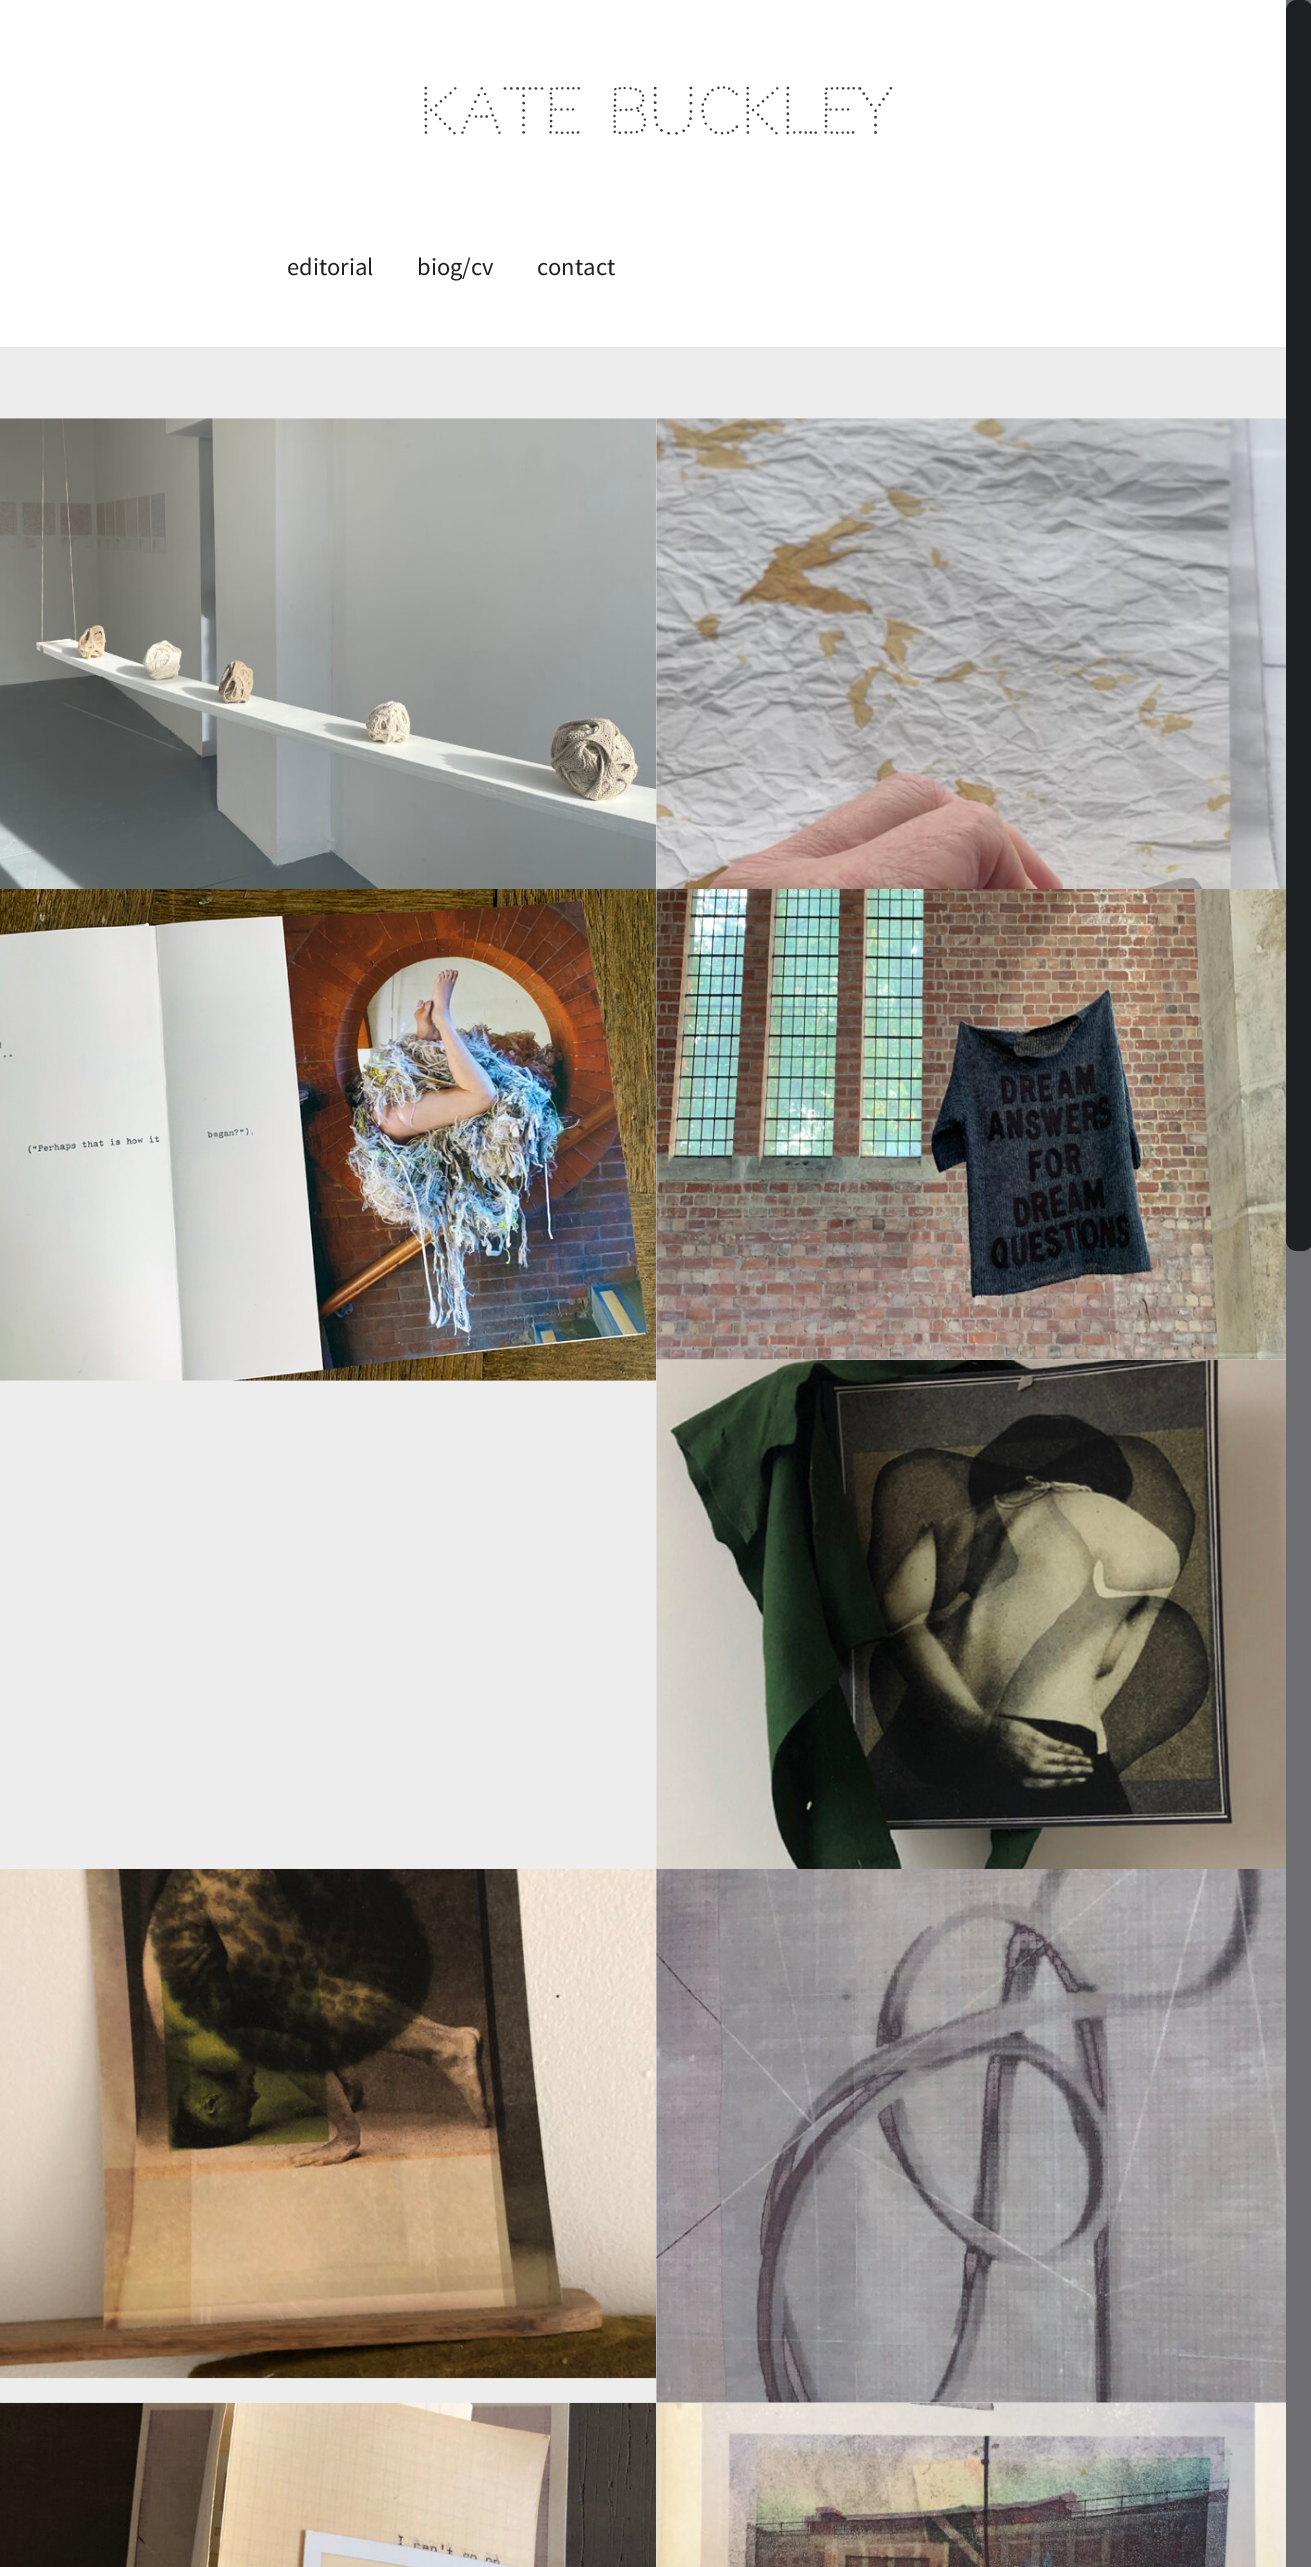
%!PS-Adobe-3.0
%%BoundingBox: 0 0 1311 2567
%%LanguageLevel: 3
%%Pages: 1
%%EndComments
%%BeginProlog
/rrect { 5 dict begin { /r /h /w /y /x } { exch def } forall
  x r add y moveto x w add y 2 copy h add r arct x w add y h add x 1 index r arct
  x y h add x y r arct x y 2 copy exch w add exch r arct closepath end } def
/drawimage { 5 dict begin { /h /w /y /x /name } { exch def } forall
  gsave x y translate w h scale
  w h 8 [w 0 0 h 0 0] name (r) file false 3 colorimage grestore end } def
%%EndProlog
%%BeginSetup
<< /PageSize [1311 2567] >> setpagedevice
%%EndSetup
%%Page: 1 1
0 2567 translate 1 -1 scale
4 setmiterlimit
0.929 setgray
0 0 1311 2567 rectfill
1 setgray
0 0 1286 347 rectfill
0.91 setgray
0 347 1286 2 rectfill
(images/1.raw) 0 418 657 471 drawimage
(images/2.raw) 656 418 630 471 drawimage
(images/3.raw) 0 889 657 492 drawimage
(images/4.raw) 656 889 630 471 drawimage
(images/5.raw) 656 1359 630 510 drawimage
(images/6.raw) 0 1869 657 510 drawimage
(images/7.raw) 656 1869 630 534 drawimage
(images/8.raw) 0 2402 657 165 drawimage
(images/9.raw) 656 2402 630 165 drawimage
0.431 0.431 0.447 setrgbcolor
1286 0 25 2567 rectfill
0.118 0.129 0.137 setrgbcolor
1286 0 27 1251 11 rrect fill
/Codystar-Regular [63 0 0 -63 0 0] selectfont
0.231 setgray
419 133 moveto (Kate Buckley) show
/SourceSansPro-Regular [24.5 0 0 -24.5 0 0] selectfont
0.133 setgray
287 275 moveto (editorial) show
417 275 moveto (biog/cv) show
537 275 moveto (contact) show
showpage
%%EOF
